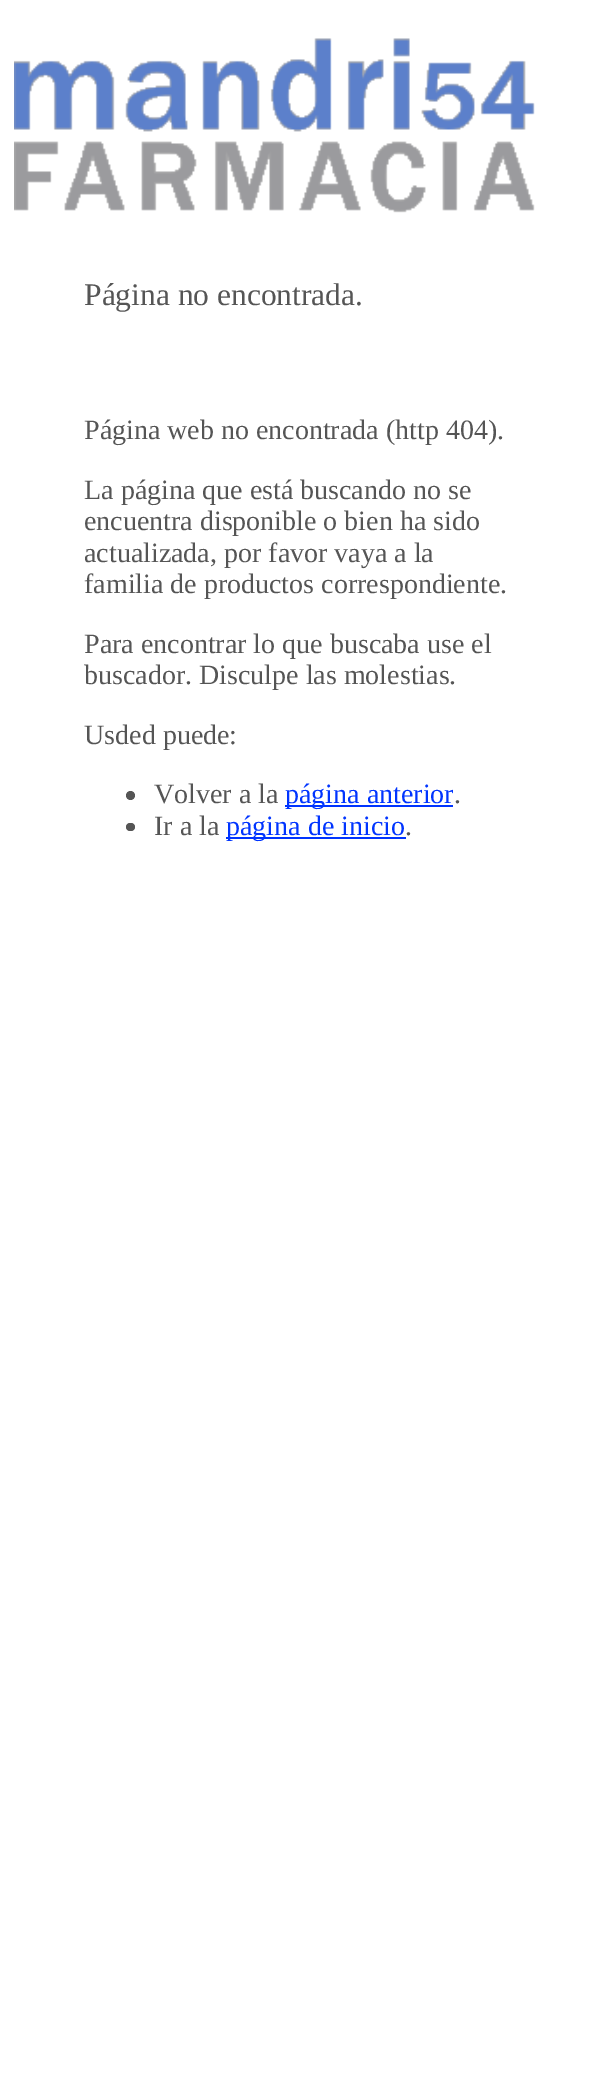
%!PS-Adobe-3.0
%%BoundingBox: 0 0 591 2096
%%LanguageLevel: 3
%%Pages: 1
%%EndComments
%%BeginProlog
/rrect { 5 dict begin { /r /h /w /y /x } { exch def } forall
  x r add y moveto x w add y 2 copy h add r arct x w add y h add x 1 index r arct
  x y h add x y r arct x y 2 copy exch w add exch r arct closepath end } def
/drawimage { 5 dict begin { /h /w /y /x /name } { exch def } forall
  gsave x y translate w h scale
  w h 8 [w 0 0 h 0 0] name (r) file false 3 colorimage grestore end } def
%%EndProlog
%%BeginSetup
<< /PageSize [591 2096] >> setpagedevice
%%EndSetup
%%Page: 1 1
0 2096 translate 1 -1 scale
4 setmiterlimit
1 setgray
0 0 591 2096 rectfill
(images/1.raw) 14 38 521 175 drawimage
0.333 setgray
newpath 130.5 795.5 4.5 0 360 arc closepath fill
0 0.204 1 setrgbcolor
285 805 168 2 rectfill
0.333 setgray
126 823 9 8 4 rrect fill
0 0.204 1 setrgbcolor
226 837 180 2 rectfill
/LiberationSerif-Regular [31.5 0 0 -31.5 0 0] selectfont
0.333 setgray
84 305 moveto (Página no encontrada.) show
/LiberationSerif-Regular [28 0 0 -28 0 0] selectfont
84 439 moveto (Página web no encontrada \(http 404\).) show
84 499 moveto (La página que está buscando no se) show
84 530 moveto (encuentra disponible o bien ha sido) show
84 562 moveto (actualizada, por favor vaya a la) show
84 593 moveto (familia de productos correspondiente.) show
84 653 moveto (Para encontrar lo que buscaba use el) show
84 684 moveto (buscador. Disculpe las molestias.) show
84 744 moveto (Usded puede:) show
154 803 moveto (Volver a la) show
0 0.204 1 setrgbcolor
285 803 moveto (página anterior) show
0.333 setgray
454 803 moveto (.) show
154 835 moveto (Ir a la) show
0 0.204 1 setrgbcolor
226 835 moveto (página de inicio) show
0.333 setgray
405 835 moveto (.) show
showpage
%%EOF
